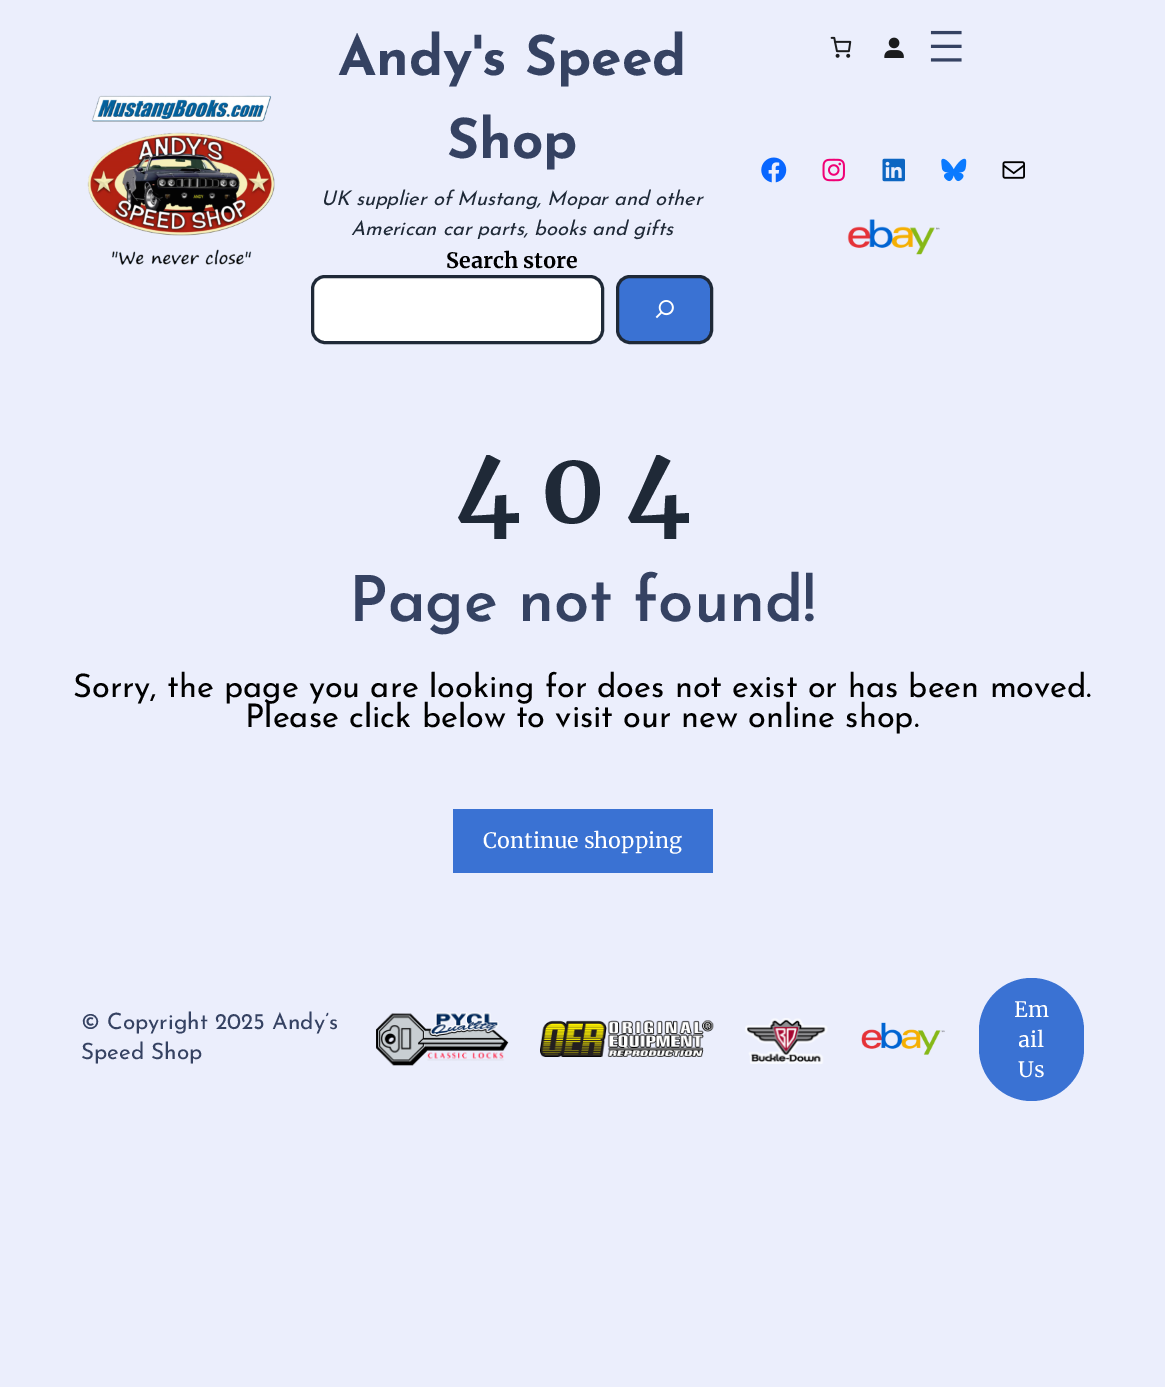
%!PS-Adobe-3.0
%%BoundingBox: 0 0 1165 1387
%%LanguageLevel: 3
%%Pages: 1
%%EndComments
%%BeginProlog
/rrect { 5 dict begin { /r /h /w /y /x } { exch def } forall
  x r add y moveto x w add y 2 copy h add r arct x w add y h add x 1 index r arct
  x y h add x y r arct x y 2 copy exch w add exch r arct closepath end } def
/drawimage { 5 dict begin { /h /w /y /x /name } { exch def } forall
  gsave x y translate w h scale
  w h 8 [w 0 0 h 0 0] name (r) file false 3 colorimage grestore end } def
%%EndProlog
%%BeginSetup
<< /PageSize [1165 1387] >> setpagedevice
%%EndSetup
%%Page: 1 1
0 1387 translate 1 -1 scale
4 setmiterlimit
0.922 0.933 0.988 setrgbcolor
0 0 1165 1387 rectfill
(images/1.raw) 87 95 188 171 drawimage
1 setgray
312.5 276.5 290 66 12.5 rrect gsave fill grestore
0.122 0.161 0.216 setrgbcolor
3 setlinewidth
stroke
0.227 0.447 0.827 setrgbcolor
617.5 276.5 94 66 12.5 rrect gsave fill grestore
0.122 0.161 0.216 setrgbcolor
stroke
(images/2.raw) 655 300 19 19 drawimage
(images/3.raw) 830 36 22 22 drawimage
(images/4.raw) 884 37 20 21 drawimage
(images/5.raw) 930 30 32 32 drawimage
(images/6.raw) 761 157 26 26 drawimage
(images/7.raw) 822 158 23 24 drawimage
(images/8.raw) 882 158 23 24 drawimage
(images/9.raw) 941 158 26 24 drawimage
(images/10.raw) 1002 161 23 18 drawimage
(images/11.raw) 847 219 93 36 drawimage
0.227 0.447 0.827 setrgbcolor
453 809 260 64 rectfill
(images/12.raw) 376 1012 133 54 drawimage
(images/13.raw) 540 1020 174 37 drawimage
(images/14.raw) 745 1018 83 46 drawimage
(images/15.raw) 861 1022 84 33 drawimage
979 978 105 123 52.5 rrect fill
/JosefinSans-Bold [55 0 0 -55 0 0] selectfont
0.208 0.259 0.384 setrgbcolor
338 75 moveto (Andy's Speed) show
447 158 moveto (Shop) show
/JosefinSans-Italic [20 0 0 -20 0 0] selectfont
0.122 0.161 0.216 setrgbcolor
321 205 moveto (UK supplier of Mustang, Mopar and other) show
351 235 moveto (American car parts, books and gifts) show
/Merriweather-Bold [21.25 0 0 -21.25 0 0] selectfont
0 setgray
446 268 moveto (Search store) show
/Merriweather-Bold [100 0 0 -100 0 0] selectfont
0.122 0.161 0.216 setrgbcolor
455 523 moveto 19 0 (404) ashow
/JosefinSans-SemiBold [63.25 0 0 -63.25 0 0] selectfont
0.208 0.259 0.384 setrgbcolor
349 621 moveto (Page not found!) show
/JosefinSans-Regular [32.5 0 0 -32.5 0 0] selectfont
0 setgray
73 697 moveto (Sorry, the page you are looking for does not exist or has been moved.) show
245 727 moveto (Please click below to visit our new online shop.) show
/Merriweather-Regular [21.25 0 0 -21.25 0 0] selectfont
1 setgray
483 848 moveto (Continue shopping) show
/JosefinSans-Regular [22.5 0 0 -22.5 0 0] selectfont
0.208 0.259 0.384 setrgbcolor
81 1029 moveto (© Copyright 2025 Andy’s) show
81 1059 moveto (Speed Shop) show
/Merriweather-Regular [21.25 0 0 -21.25 0 0] selectfont
1 setgray
1014 1017 moveto (Em) show
1018 1047 moveto (ail) show
1018 1077 moveto (Us) show
showpage
%%EOF
